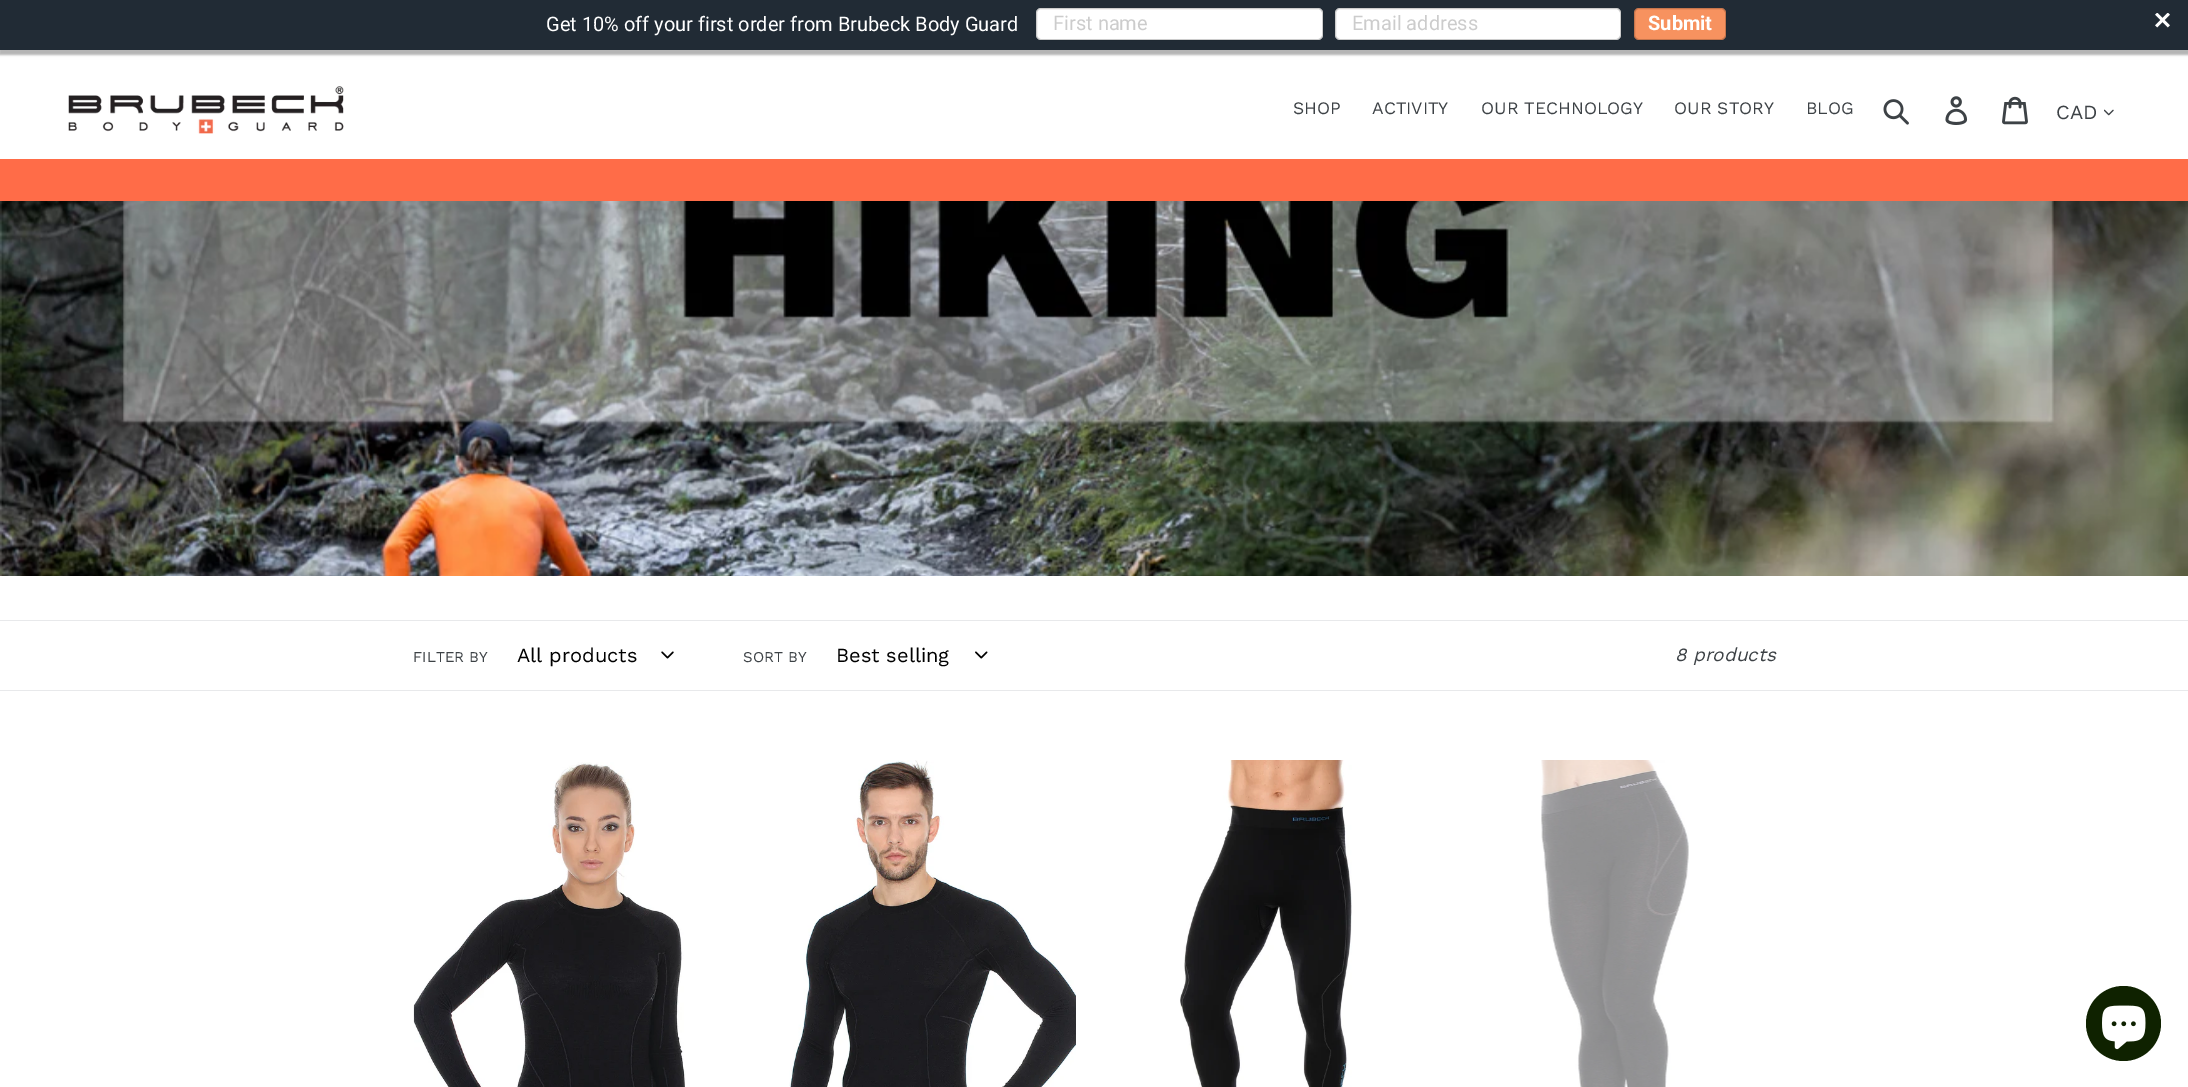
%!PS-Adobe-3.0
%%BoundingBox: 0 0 2188 1087
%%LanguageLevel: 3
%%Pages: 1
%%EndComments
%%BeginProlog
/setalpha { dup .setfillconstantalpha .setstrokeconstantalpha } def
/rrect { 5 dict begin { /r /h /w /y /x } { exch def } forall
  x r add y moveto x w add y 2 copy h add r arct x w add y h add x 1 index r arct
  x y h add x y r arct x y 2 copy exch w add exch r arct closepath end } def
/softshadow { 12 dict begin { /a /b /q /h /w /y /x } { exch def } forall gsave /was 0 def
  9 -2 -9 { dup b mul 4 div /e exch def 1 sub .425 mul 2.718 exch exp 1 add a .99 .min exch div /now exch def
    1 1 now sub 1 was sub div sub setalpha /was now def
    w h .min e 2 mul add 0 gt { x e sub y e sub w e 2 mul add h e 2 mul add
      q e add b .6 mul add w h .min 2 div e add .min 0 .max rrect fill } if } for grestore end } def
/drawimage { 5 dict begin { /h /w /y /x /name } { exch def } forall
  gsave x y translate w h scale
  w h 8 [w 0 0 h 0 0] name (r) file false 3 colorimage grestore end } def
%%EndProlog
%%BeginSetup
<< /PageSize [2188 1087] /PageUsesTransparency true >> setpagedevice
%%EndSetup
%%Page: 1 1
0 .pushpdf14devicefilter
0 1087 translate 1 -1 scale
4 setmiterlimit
1 setgray
0 0 2188 1087 rectfill
0 setgray
-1 3 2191 52 0 1 0.3 softshadow
0.129 0.169 0.208 setrgbcolor
0 0 2188 50 rectfill
1 setgray
1036 8 287 32 5 rrect fill
0.2 setalpha
0 setgray
1036.5 8.5 286 31 4.5 rrect stroke
1 setalpha
1 setgray
1335 8 286 32 5 rrect fill
0.2 setalpha
0 setgray
1335.5 8.5 285 31 4.5 rrect stroke
1 setalpha
0.969 0.573 0.373 setrgbcolor
1634 8 92 32 5 rrect fill
0.2 setalpha
0 setgray
1634.5 8.5 91 31 4.5 rrect stroke
1 setalpha
(images/1.raw) 2155 13 15 15 drawimage
1 0.424 0.282 setrgbcolor
0 159 2188 42 rectfill
(images/2.raw) 68 86 276 48 drawimage
(images/3.raw) 1883 99 26 26 drawimage
(images/4.raw) 1945 96 23 29 drawimage
(images/5.raw) 2002 96 26 29 drawimage
(images/6.raw) 2104 109 10 7 drawimage
(images/7.raw) 0 201 2188 375 drawimage
0.91 0.914 0.922 setrgbcolor
0 620 2188 1 rectfill
0 690 2188 1 rectfill
(images/8.raw) 661 651 13 8 drawimage
(images/9.raw) 975 651 13 8 drawimage
(images/10.raw) 413 762 273 325 drawimage
(images/11.raw) 789 760 287 327 drawimage
(images/12.raw) 1180 760 172 327 drawimage
(images/13.raw) 1541 760 148 327 drawimage
0.059 0.133 0 setrgbcolor
newpath 2123.5 1023.5 37.5 0 360 arc closepath fill
(images/14.raw) 2102 1005 44 45 drawimage
/Roboto-Regular [20 0 0 -20 0 0] selectfont
1 setgray
546 31 moveto (Get 10% off your first order from Brubeck Body Guard) show
0.8 setgray
1053 30 moveto (First name) show
1352 30 moveto (Email address) show
/Roboto-Bold [20 0 0 -20 0 0] selectfont
1 setgray
1648 30 moveto (Submit) show
/WorkSans-Regular [17.5 0 0 -17.5 0 0] selectfont
0.239 0.259 0.275 setrgbcolor
1293 114 moveto (SHOP) show
1372 114 moveto (ACTIVITY) show
1481 114 moveto (OUR TECHNOLOGY) show
1674 114 moveto (OUR STORY) show
1806 114 moveto (BLOG) show
/WorkSans-Regular [20 0 0 -20 0 0] selectfont
2056 119 moveto (CAD) show
/WorkSans-Regular [15 0 0 -15 0 0] selectfont
413 662 moveto (FILTER BY) show
/WorkSans-Regular [20 0 0 -20 0 0] selectfont
0 setgray
517 662 moveto (All products) show
/WorkSans-Regular [15 0 0 -15 0 0] selectfont
0.239 0.259 0.275 setrgbcolor
743 662 moveto (SORT BY) show
/WorkSans-Regular [20 0 0 -20 0 0] selectfont
0 setgray
836 662 moveto (Best selling) show
/WorkSans-Italic [18.75 0 0 -18.75 0 0] selectfont
0.239 0.259 0.275 setrgbcolor
1675 661 moveto (8 products) show
.poppdf14devicefilter showpage
%%EOF
